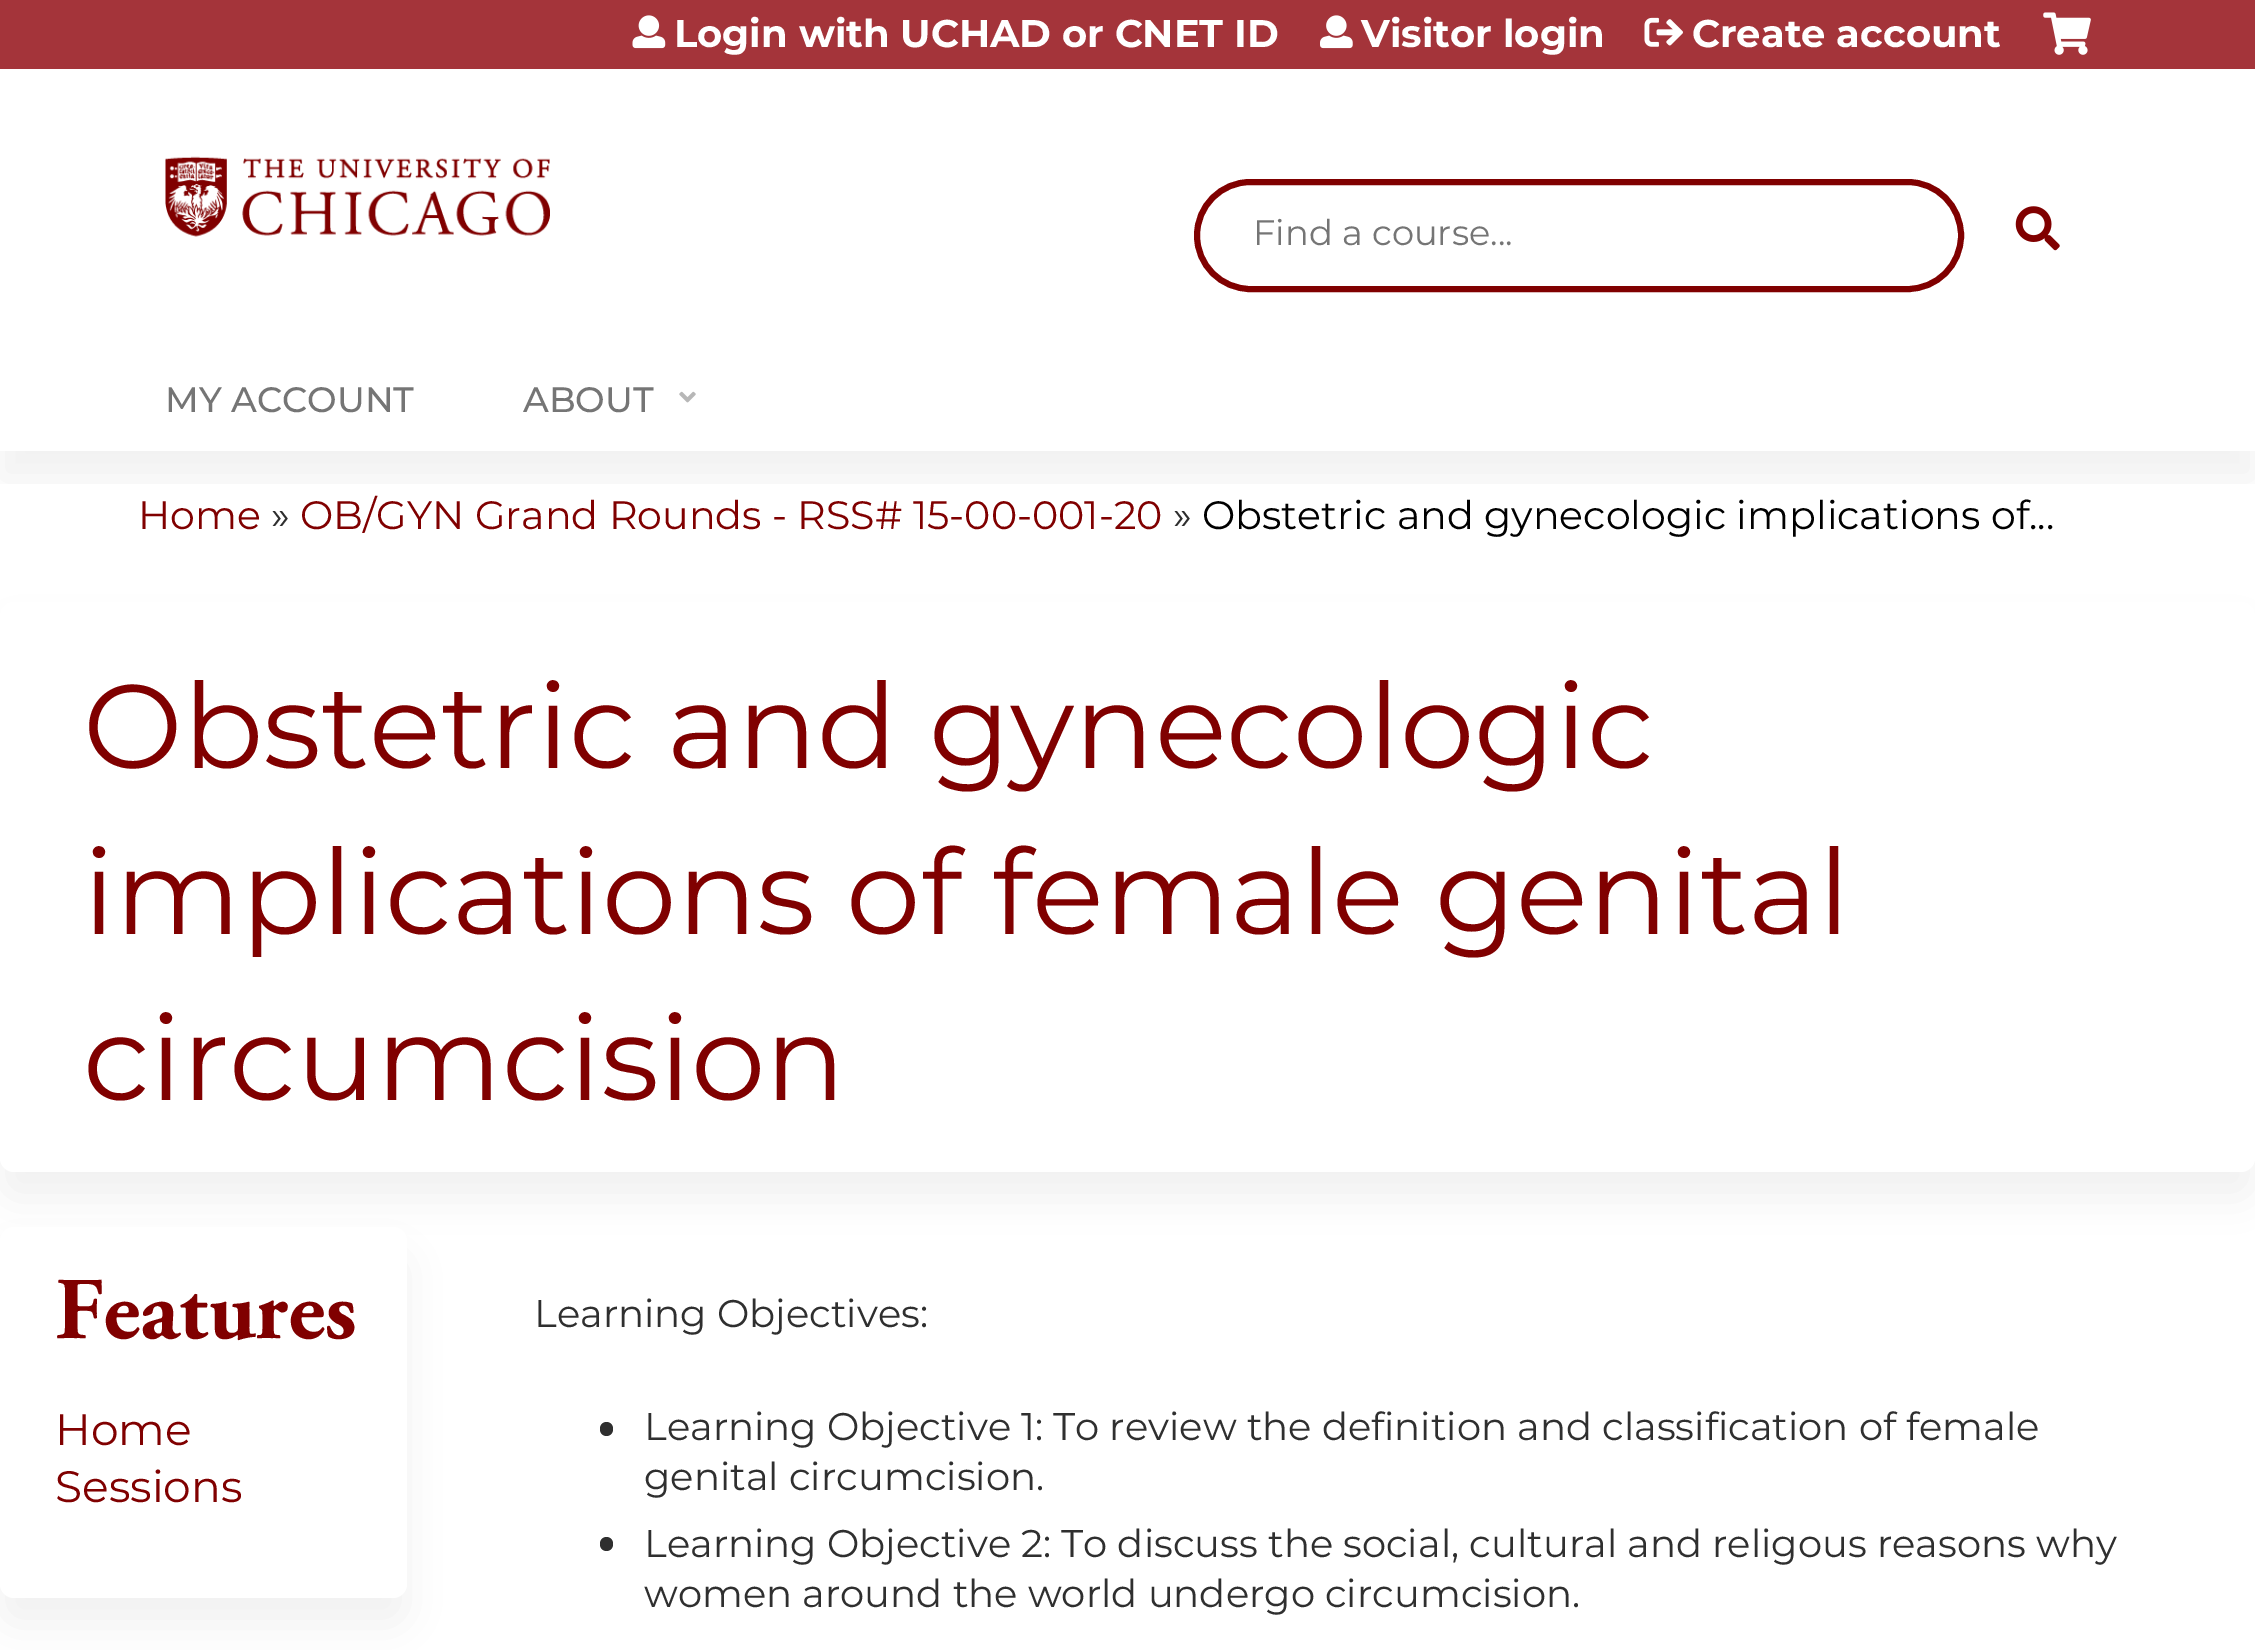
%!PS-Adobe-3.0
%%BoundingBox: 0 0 2255 1650
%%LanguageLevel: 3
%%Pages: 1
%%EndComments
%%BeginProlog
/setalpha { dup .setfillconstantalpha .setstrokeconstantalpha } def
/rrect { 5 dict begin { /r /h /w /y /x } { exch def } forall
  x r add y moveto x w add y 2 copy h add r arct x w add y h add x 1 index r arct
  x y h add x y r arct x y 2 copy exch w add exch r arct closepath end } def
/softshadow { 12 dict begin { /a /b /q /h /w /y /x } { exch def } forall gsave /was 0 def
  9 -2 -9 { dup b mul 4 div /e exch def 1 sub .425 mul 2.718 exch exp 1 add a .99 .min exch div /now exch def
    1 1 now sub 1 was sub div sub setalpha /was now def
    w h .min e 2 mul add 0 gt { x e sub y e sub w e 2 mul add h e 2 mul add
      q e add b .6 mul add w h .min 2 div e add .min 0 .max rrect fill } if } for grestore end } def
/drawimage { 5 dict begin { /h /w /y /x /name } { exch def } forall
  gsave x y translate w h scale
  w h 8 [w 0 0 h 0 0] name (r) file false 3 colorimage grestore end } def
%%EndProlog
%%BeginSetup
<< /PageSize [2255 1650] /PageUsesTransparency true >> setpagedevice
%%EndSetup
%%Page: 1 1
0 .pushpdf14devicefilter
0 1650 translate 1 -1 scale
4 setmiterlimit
1 setgray
0 0 2255 1650 rectfill
0.643 0.204 0.227 setrgbcolor
0 0 2255 69 rectfill
(images/1.raw) 165 156 385 81 drawimage
(images/2.raw) 632 15 34 34 drawimage
(images/3.raw) 1320 15 33 34 drawimage
(images/4.raw) 1644 17 39 30 drawimage
(images/5.raw) 2043 12 48 43 drawimage
0.502 0 0 setrgbcolor
6 setlinewidth
1197 182 764 107 53.5 rrect stroke
(images/6.raw) 2015 206 45 45 drawimage
gsave
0 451 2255 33 rectclip
0 setgray
0 374 2255 105 0 20.5 0.05 softshadow
grestore
(images/7.raw) 679 391 17 12 drawimage
0 setgray
0 630 2255 569 14 20.5 0.05 softshadow
1 setgray
0 602 2255 570 14 rrect fill
0 setgray
0 1254 407 371 14 20.5 0.05 softshadow
1 setgray
0 1227 407 371 14 rrect fill
0.184 setgray
600 1422 13 14 6.5 rrect fill
600 1537 13 14 6.5 rrect fill
/Montserrat-Bold [38.5 0 0 -38.5 0 0] selectfont
1 setgray
674 47 moveto (Login with UCHAD or CNET ID) show
1361 47 moveto (Visitor login) show
1692 47 moveto (Create account) show
/Montserrat-Regular [35.25 0 0 -35.25 0 0] selectfont
0.459 setgray
1253 245 moveto (Find a course...) show
/Montserrat-Medium [35.25 0 0 -35.25 0 0] selectfont
165 412 moveto (MY ACCOUNT) show
523 412 moveto (ABOUT) show
/Montserrat-Regular [39.6 0 0 -39.6 0 0] selectfont
0.502 0 0 setrgbcolor
138 529 moveto (Home) show
0.184 setgray
271 529 moveto (») show
0.502 0 0 setrgbcolor
300 529 moveto (OB/GYN Grand Rounds - RSS# 15-00-001-20) show
0.184 setgray
1173 529 moveto (») show
0 setgray
1202 529 moveto (Obstetric and gynecologic implications of...) show
/Montserrat-Regular [118.75 0 0 -118.75 0 0] selectfont
0.502 0 0 setrgbcolor
83 768 moveto (Obstetric and gynecologic) show
83 934 moveto (implications of female genital) show
83 1100 moveto (circumcision) show
/AdobeGaramond-Bold [88 0 0 -88 0 0] selectfont
55 1338 moveto (Features) show
/Montserrat-Regular [44 0 0 -44 0 0] selectfont
55 1445 moveto (Home) show
55 1502 moveto (Sessions) show
/Montserrat-Regular [38.5 0 0 -38.5 0 0] selectfont
0.184 setgray
534 1327 moveto (Learning Objectives:) show
644 1440 moveto (Learning Objective 1: To review the definition and classification of female) show
644 1490 moveto (genital circumcision.) show
644 1557 moveto (Learning Objective 2: To discuss the social, cultural and religous reasons why) show
644 1607 moveto (women around the world undergo circumcision.) show
.poppdf14devicefilter showpage
%%EOF
